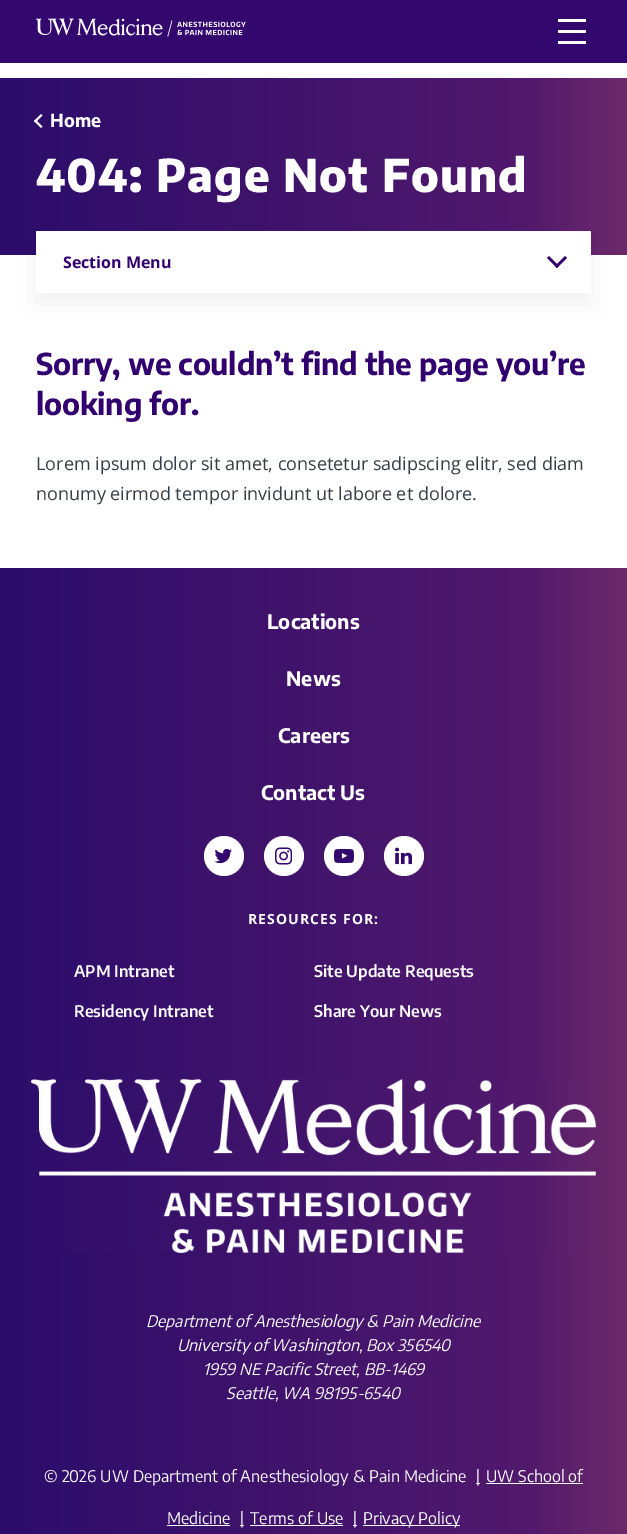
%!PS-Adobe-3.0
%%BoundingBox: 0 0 627 1534
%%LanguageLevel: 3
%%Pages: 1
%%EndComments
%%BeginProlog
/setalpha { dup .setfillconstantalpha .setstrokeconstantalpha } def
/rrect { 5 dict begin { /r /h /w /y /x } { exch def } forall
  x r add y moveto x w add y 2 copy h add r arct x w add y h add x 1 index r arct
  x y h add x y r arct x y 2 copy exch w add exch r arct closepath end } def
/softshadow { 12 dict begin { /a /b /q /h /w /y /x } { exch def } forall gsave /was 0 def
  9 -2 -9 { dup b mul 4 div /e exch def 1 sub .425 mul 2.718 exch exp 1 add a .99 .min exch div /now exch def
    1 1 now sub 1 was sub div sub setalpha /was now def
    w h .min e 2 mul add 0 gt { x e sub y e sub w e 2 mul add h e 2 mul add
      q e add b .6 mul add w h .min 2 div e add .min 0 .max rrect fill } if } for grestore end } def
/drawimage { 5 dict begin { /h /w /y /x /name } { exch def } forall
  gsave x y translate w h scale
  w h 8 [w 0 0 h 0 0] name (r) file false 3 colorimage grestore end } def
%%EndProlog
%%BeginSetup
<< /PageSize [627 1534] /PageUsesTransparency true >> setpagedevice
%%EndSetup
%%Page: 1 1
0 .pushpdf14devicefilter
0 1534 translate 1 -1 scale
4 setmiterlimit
1 setgray
0 0 627 1534 rectfill
0.196 0.027 0.431 setrgbcolor
0 0 627 63 rectfill
(images/1.raw) 36 18 210 19 drawimage
1 setgray
558 30 28 3 rectfill
558 19 28 3 rectfill
558 41 28 3 rectfill
gsave newpath 0 78 moveto 627 78 lineto 627 255 lineto 0 255 lineto closepath clip newpath
<< /ShadingType 2 /ColorSpace /DeviceRGB /Coords [627 166 0 167] /Extend [true true] /Function << /FunctionType 3 /Domain [0 1] /Functions [<< /FunctionType 2 /Domain [0 1] /C0 [0.427 0.165 0.416] /C1 [0.318 0.098 0.424] /N 1 >> << /FunctionType 2 /Domain [0 1] /C0 [0.318 0.098 0.424] /C1 [0.173 0.051 0.42] /N 1 >>] /Bounds [0.16] /Encode [0 1 0 1] >> >> shfill grestore
newpath 35.5 119.5 moveto 42.5 126.5 lineto 41 128 lineto 34 121 lineto closepath fill
newpath 41 114 moveto 42.5 115.5 lineto 35.5 122.5 lineto 34 121 lineto closepath fill
0 setgray
36 241 555 62 0 12.5 0.05 softshadow
1 setgray
36 231 555 62 rectfill
0.196 0 0.431 setrgbcolor
newpath 565 256 moveto 567 258 lineto 557 268 lineto 555 266 lineto closepath fill
newpath 549 256 moveto 559 266 lineto 557 268 lineto 547 258 lineto closepath fill
gsave newpath 0 568 moveto 627 568 lineto 627 1534 lineto 0 1534 lineto closepath clip newpath
<< /ShadingType 2 /ColorSpace /DeviceRGB /Coords [627 1082 0 1082] /Extend [true true] /Function << /FunctionType 3 /Domain [0 1] /Functions [<< /FunctionType 2 /Domain [0 1] /C0 [0.427 0.165 0.416] /C1 [0.318 0.098 0.424] /N 1 >> << /FunctionType 2 /Domain [0 1] /C0 [0.318 0.098 0.424] /C1 [0.173 0.051 0.42] /N 1 >>] /Bounds [0.16] /Encode [0 1 0 1] >> >> shfill grestore
1 setgray
newpath 224 856 20 0 360 arc closepath fill
(images/2.raw) 214 848 18 16 drawimage
newpath 284 856 20 0 360 arc closepath fill
(images/3.raw) 275 847 17 18 drawimage
newpath 344 856 20 0 360 arc closepath fill
(images/4.raw) 334 849 20 14 drawimage
newpath 404 856 20 0 360 arc closepath fill
(images/5.raw) 395 847 17 18 drawimage
(images/6.raw) 31 1079 565 174 drawimage
476 1483 4 1 rectfill
486 1483 97 1 rectfill
167 1525 63 1 rectfill
240 1525 4 1 rectfill
250 1525 93 1 rectfill
353 1525 4 1 rectfill
363 1525 97 1 rectfill
/EncodeSansCondensed-Bold [18 0 0 -18 0 0] selectfont
50 127 moveto (Home) show
/EncodeSansCondensed-ExtraBold [45 0 0 -45 0 0] selectfont
36 192 moveto 1.1 0 (404: Page Not Found) ashow
/OpenSans-Bold [16 0 0 -16 0 0] selectfont
0.196 0 0.431 setrgbcolor
63 268 moveto (Section Menu) show
/EncodeSansCondensed-Bold [30 0 0 -30 0 0] selectfont
36 375 moveto -0.2 0 (Sorry, we couldn’t find the page you’re) ashow
36 415 moveto -0.2 0 (looking for.) ashow
/OpenSans-Regular [18 0 0 -18 0 0] selectfont
0.208 0.239 0.275 setrgbcolor
36 470 moveto (Lorem ipsum dolor sit amet, consetetur sadipscing elitr, sed diam) show
36 500 moveto (nonumy eirmod tempor invidunt ut labore et dolore.) show
/EncodeSansCondensed-Bold [20 0 0 -20 0 0] selectfont
1 setgray
267 629 moveto (Locations) show
286 686 moveto (News) show
278 743 moveto (Careers) show
261 800 moveto (Contact Us) show
/OpenSans-Bold [14 0 0 -14 0 0] selectfont
248 924 moveto 1.1 0 (RESOURCES FOR:) ashow
/EncodeSansCondensed-SemiBold [16 0 0 -16 0 0] selectfont
74 977 moveto (APM Intranet) show
314 977 moveto (Site Update Requests) show
74 1017 moveto (Residency Intranet) show
314 1017 moveto (Share Your News) show
/EncodeSansCondensed-Italic [16 0 0 -16 0 0] selectfont
146 1327 moveto (Department of Anesthesiology & Pain Medicine) show
177 1351 moveto (University of Washington, Box 356540) show
203 1375 moveto (1959 NE Pacific Street, BB-1469) show
226 1399 moveto (Seattle, WA 98195-6540) show
/EncodeSansCondensed-Regular [16 0 0 -16 0 0] selectfont
44 1482 moveto (© 2026 UW Department of Anesthesiology & Pain Medicine) show
476 1482 moveto (|) show
486 1482 moveto (UW School of) show
167 1524 moveto (Medicine) show
240 1524 moveto (|) show
250 1524 moveto (Terms of Use) show
353 1524 moveto (|) show
363 1524 moveto (Privacy Policy) show
.poppdf14devicefilter showpage
%%EOF
